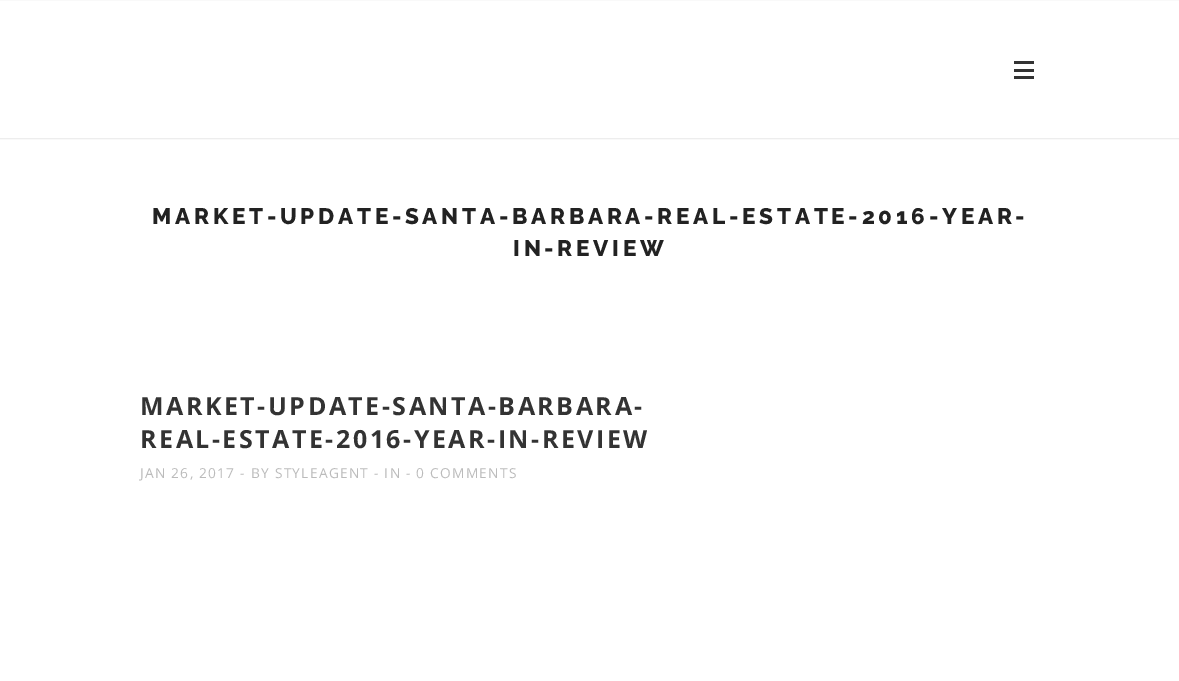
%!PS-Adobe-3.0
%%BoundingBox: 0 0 1179 681
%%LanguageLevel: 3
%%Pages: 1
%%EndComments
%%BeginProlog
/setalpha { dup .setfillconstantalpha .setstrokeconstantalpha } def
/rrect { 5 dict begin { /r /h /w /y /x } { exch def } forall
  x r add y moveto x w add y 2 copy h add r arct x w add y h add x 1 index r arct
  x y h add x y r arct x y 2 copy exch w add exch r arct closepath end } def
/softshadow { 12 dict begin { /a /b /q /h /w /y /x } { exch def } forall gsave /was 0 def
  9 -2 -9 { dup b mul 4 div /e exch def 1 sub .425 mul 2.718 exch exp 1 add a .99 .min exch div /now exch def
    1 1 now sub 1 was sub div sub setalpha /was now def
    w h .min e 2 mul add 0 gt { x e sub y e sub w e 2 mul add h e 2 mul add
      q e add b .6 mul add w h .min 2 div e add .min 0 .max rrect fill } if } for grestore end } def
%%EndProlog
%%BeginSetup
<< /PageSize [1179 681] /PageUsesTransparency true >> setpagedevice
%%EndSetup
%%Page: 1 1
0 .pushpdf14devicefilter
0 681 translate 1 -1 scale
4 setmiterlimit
1 setgray
0 0 1179 681 rectfill
0 setgray
0 1 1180 138 0 0.5 0.08 softshadow
1 setgray
0 1 1179 137 rectfill
0.2 setgray
1014 69 20 3 rectfill
1014 61 20 3 rectfill
1014 76 20 3 rectfill
/Raleway-ExtraBold [22.5 0 0 -22.5 0 0] selectfont
0.133 setgray
152 224 moveto 3.75 0 (MARKET-UPDATE-SANTA-BARBARA-REAL-ESTATE-2016-YEAR-) ashow
513 256 moveto 3.75 0 (IN-REVIEW) ashow
/OpenSans-Bold [25 0 0 -25 0 0] selectfont
0.2 setgray
140 415 moveto 2.5 0 (MARKET-UPDATE-SANTA-BARBARA-) ashow
140 448 moveto 2.5 0 (REAL-ESTATE-2016-YEAR-IN-REVIEW) ashow
/OpenSans-Regular [13.75 0 0 -13.75 0 0] selectfont
0.733 setgray
140 478 moveto 1.25 0 (JAN 26, 2017 - BY STYLEAGENT - IN - 0 COMMENTS) ashow
.poppdf14devicefilter showpage
%%EOF
